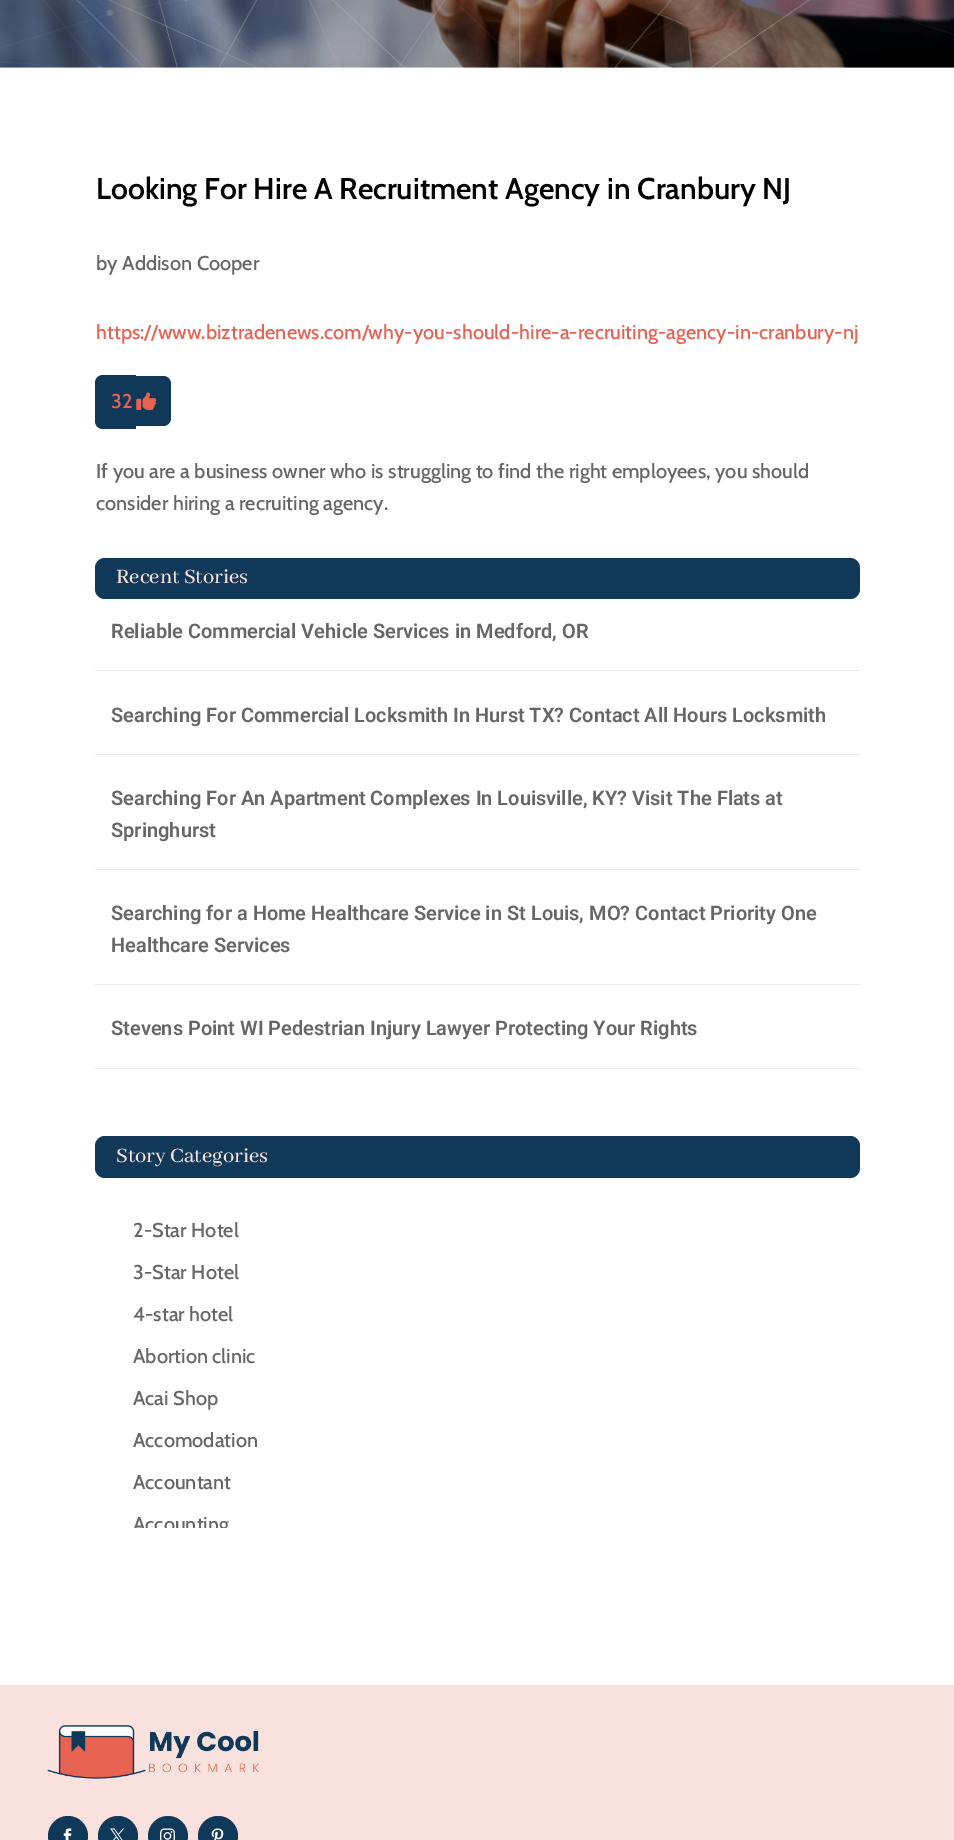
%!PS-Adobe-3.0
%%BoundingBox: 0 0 954 1840
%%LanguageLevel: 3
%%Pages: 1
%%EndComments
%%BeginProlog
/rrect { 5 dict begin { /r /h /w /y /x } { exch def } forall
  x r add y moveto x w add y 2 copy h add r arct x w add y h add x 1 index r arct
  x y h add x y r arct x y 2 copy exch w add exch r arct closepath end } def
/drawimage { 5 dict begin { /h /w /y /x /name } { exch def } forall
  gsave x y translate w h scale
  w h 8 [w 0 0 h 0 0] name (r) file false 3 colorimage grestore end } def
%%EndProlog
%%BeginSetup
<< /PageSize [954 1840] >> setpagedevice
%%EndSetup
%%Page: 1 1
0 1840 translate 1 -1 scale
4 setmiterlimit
1 setgray
0 0 954 1840 rectfill
(images/1.raw) 0 0 954 68 drawimage
0.059 0.22 0.349 setrgbcolor
newpath 103 375 moveto 136 375 lineto 136 429 lineto 103 429 lineto 98.5 429 95 425.5 95 421 curveto 95 383 lineto 95 378.5 98.5 375 103 375 curveto closepath fill
newpath 136 376 moveto 163 376 lineto 167.5 376 171 379.5 171 384 curveto 171 418 lineto 171 422.5 167.5 426 163 426 curveto 136 426 lineto closepath fill
(images/2.raw) 136 392 21 18 drawimage
95 558 765 41 10 rrect fill
0.914 setgray
95 670 765 1 rectfill
95 754 765 1 rectfill
95 869 765 1 rectfill
95 984 765 1 rectfill
95 1068 765 1 rectfill
0.059 0.22 0.349 setrgbcolor
95 1136 765 42 10 rrect fill
0.976 0.886 0.871 setrgbcolor
0 1685 954 155 rectfill
(images/3.raw) 47 1725 212 54 drawimage
0.059 0.22 0.349 setrgbcolor
newpath 68 1836 20 0 360 arc closepath fill
(images/4.raw) 63 1828 9 12 drawimage
newpath 118 1836 20 0 360 arc closepath fill
(images/5.raw) 110 1828 15 12 drawimage
newpath 168 1836 20 0 360 arc closepath fill
(images/6.raw) 160 1828 15 12 drawimage
newpath 218 1836 20 0 360 arc closepath fill
(images/7.raw) 211 1828 13 12 drawimage
/Cabin-SemiBold [30 0 0 -30 0 0] selectfont
0 setgray
96 199 moveto (Looking For Hire A Recruitment Agency in Cranbury NJ) show
/Cabin-Medium [20 0 0 -20 0 0] selectfont
0.4 setgray
96 270 moveto (by Addison Cooper) show
0.91 0.384 0.322 setrgbcolor
96 339 moveto (https://www.biztradenews.com/why-you-should-hire-a-recruiting-agency-in-cranbury-nj) show
111 408 moveto (32) show
0.4 setgray
96 478 moveto (If you are a business owner who is struggling to find the right employees, you should) show
96 510 moveto (consider hiring a recruiting agency.) show
/AbhayaLibreMedium-Medium [22.5 0 0 -22.5 0 0] selectfont
0.976 0.886 0.871 setrgbcolor
116 583 moveto (Recent Stories) show
/Roboto-SemiBold [20 0 0 -20 0 0] selectfont
0.4 setgray
111 638 moveto (Reliable Commercial Vehicle Services in Medford, OR) show
111 722 moveto (Searching For Commercial Locksmith In Hurst TX? Contact All Hours Locksmith) show
111 805 moveto (Searching For An Apartment Complexes In Louisville, KY? Visit The Flats at) show
111 837 moveto (Springhurst) show
111 920 moveto (Searching for a Home Healthcare Service in St Louis, MO? Contact Priority One) show
111 952 moveto (Healthcare Services) show
111 1035 moveto (Stevens Point WI Pedestrian Injury Lawyer Protecting Your Rights) show
/AbhayaLibreMedium-Medium [22.5 0 0 -22.5 0 0] selectfont
0.976 0.886 0.871 setrgbcolor
116 1162 moveto (Story Categories) show
/Cabin-Medium [20 0 0 -20 0 0] selectfont
0.4 setgray
133 1237 moveto (2-Star Hotel) show
133 1279 moveto (3-Star Hotel) show
133 1321 moveto (4-star hotel) show
133 1363 moveto (Abortion clinic) show
133 1405 moveto (Acai Shop) show
133 1447 moveto (Accomodation) show
133 1489 moveto (Accountant) show
gsave
133 1215 727 313 rectclip
133 1531 moveto (Accounting) show
grestore
showpage
%%EOF
